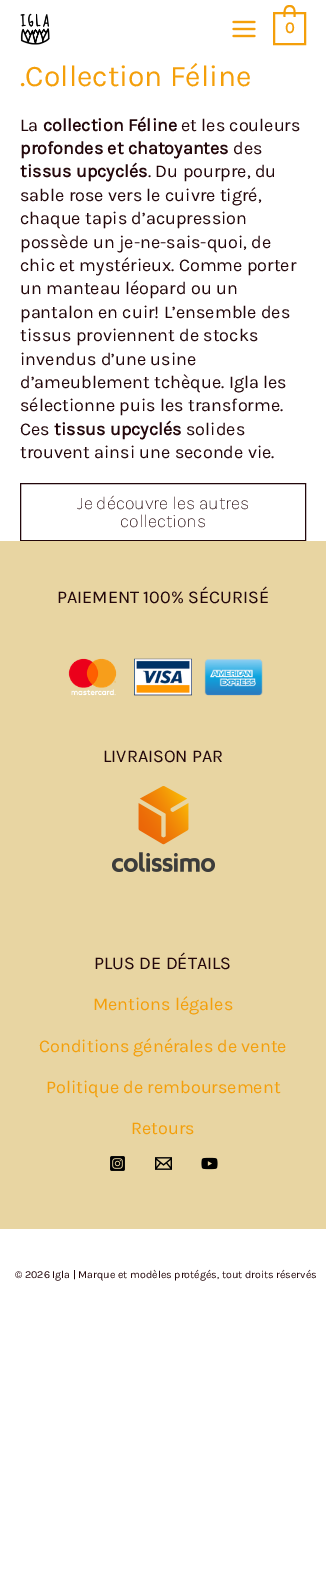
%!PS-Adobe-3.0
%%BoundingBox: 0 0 326 1571
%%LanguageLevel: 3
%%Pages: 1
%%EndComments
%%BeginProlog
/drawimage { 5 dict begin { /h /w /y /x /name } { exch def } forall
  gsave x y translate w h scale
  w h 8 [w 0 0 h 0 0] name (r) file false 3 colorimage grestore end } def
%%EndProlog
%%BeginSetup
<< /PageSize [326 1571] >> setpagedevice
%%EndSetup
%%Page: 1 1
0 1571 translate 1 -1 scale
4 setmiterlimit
1 setgray
0 0 326 1571 rectfill
(images/1.raw) 20 13 30 32 drawimage
(images/2.raw) 232 20 24 18 drawimage
0.957 0.624 0.039 setrgbcolor
2 setlinewidth
274 13 31 31 rectstroke
newpath 289.5 5 moveto 296.5 5 295.5 12.5 295.5 17 curveto 283.5 17 lineto 283.5 12.5 283 5 289.5 5 curveto closepath 289.5 7 moveto 295 7 293.5 13.5 293.5 17 curveto 285.5 17 lineto 285.5 13.5 284.5 7 289.5 7 curveto closepath eofill
0.137 0.027 0.043 setrgbcolor
1 setlinewidth
20.5 483.5 285 57 rectstroke
0.91 0.835 0.635 setrgbcolor
0 541 326 688 rectfill
(images/3.raw) 68 658 195 38 drawimage
(images/4.raw) 112 786 103 86 drawimage
(images/5.raw) 110 1156 15 15 drawimage
(images/6.raw) 155 1157 17 13 drawimage
(images/7.raw) 201 1157 17 13 drawimage
/Karla-Bold [16 0 0 -16 0 0] selectfont
0.957 0.624 0.039 setrgbcolor
285 33 moveto (0) show
/Karla-Regular [30 0 0 -30 0 0] selectfont
20 86 moveto (.Collection Féline) show
/Karla-Regular [18 0 0 -18 0 0] selectfont
0.137 0.027 0.043 setrgbcolor
20 131 moveto (La) show
/Karla-Bold [18 0 0 -18 0 0] selectfont
43 131 moveto (collection Féline) show
/Karla-Regular [18 0 0 -18 0 0] selectfont
181 131 moveto (et les couleurs) show
/Karla-Bold [18 0 0 -18 0 0] selectfont
20 154 moveto (profondes et chatoyantes) show
/Karla-Regular [18 0 0 -18 0 0] selectfont
233 154 moveto (des) show
/Karla-Bold [18 0 0 -18 0 0] selectfont
20 177 moveto (tissus upcyclés) show
/Karla-Regular [18 0 0 -18 0 0] selectfont
148 177 moveto (. Du pourpre, du) show
20 201 moveto (sable rose vers le cuivre tigré,) show
20 224 moveto (chaque tapis d’acupression) show
20 248 moveto (possède un je-ne-sais-quoi, de) show
20 271 moveto (chic et mystérieux. Comme porter) show
20 294 moveto (un manteau léopard ou un) show
20 318 moveto (pantalon en cuir! L’ensemble des) show
20 341 moveto (tissus proviennent de stocks) show
20 365 moveto (invendus d’une usine) show
20 388 moveto (d’ameublement tchèque. Igla les) show
20 411 moveto (sélectionne puis les transforme.) show
20 435 moveto (Ces) show
/Karla-Bold [18 0 0 -18 0 0] selectfont
54 435 moveto (tissus upcyclés) show
/Karla-Regular [18 0 0 -18 0 0] selectfont
186 435 moveto (solides) show
20 458 moveto (trouvent ainsi une seconde vie.) show
/Karla-ExtraLight [18 0 0 -18 0 0] selectfont
77 509 moveto (Je découvre les autres) show
120 527 moveto (collections) show
/Karla-Regular [18 0 0 -18 0 0] selectfont
57 603 moveto (PAIEMENT 100% SÉCURISÉ) show
103 762 moveto (LIVRAISON PAR) show
94 969 moveto (PLUS DE DÉTAILS) show
0.957 0.624 0.039 setrgbcolor
93 1010 moveto (Mentions légales) show
39 1052 moveto (Conditions générales de vente) show
46 1093 moveto (Politique de remboursement) show
131 1134 moveto (Retours) show
/Karla-Regular [10.7 0 0 -10.7 0 0] selectfont
0.137 0.027 0.043 setrgbcolor
15 1278 moveto (© 2026 Igla | Marque et modèles protégés, tout droits réservés) show
showpage
%%EOF
